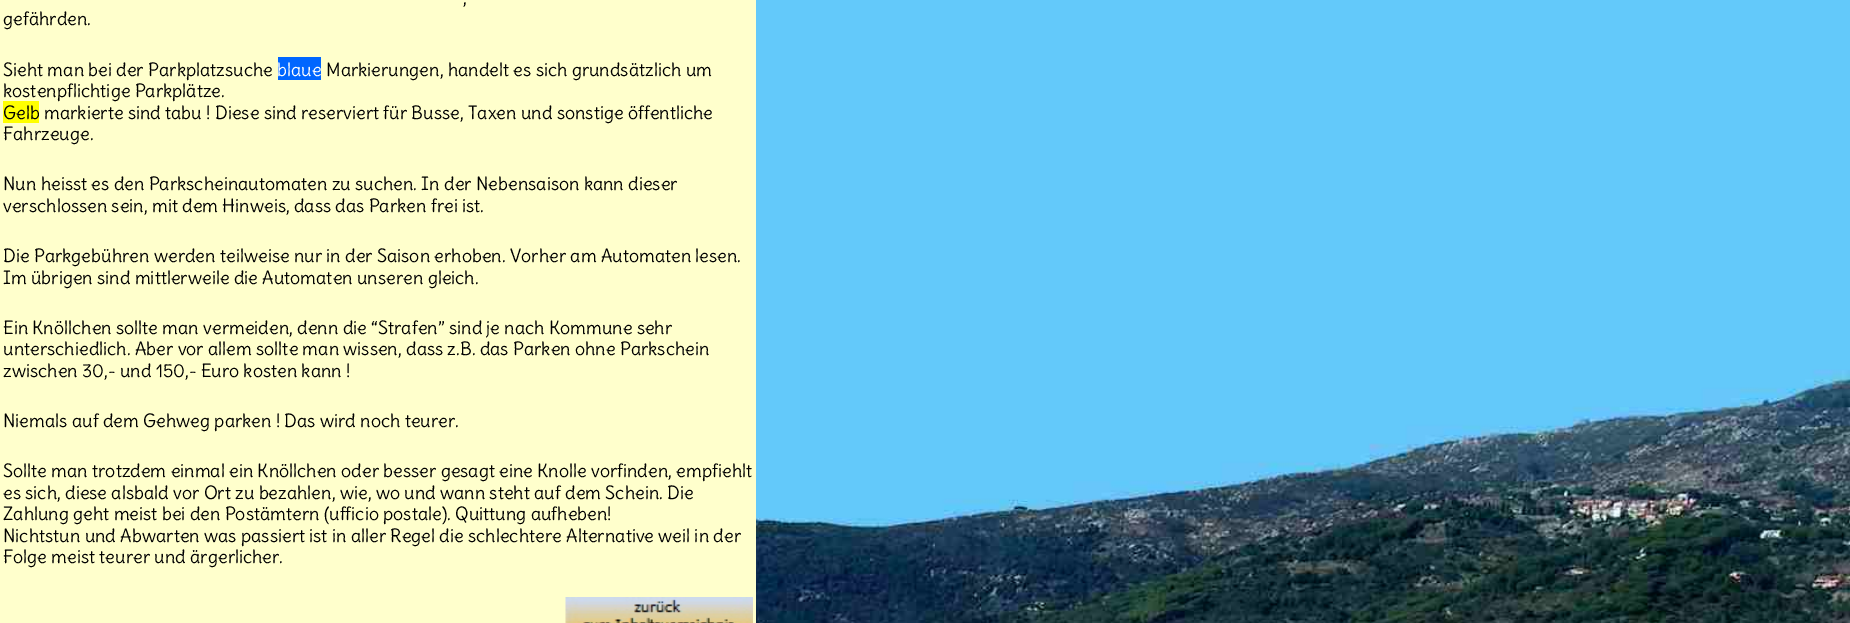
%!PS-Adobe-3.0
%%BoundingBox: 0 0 1850 623
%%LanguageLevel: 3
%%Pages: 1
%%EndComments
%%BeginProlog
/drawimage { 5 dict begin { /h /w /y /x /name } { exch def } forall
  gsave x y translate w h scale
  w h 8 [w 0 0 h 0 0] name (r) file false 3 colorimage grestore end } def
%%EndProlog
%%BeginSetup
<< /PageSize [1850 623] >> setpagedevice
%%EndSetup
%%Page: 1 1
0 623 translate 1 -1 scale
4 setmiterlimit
1 setgray
0 0 1850 623 rectfill
(images/1.raw) 756 0 1094 623 drawimage
1 1 0.8 setrgbcolor
0 0 756 623 rectfill
0 0.4 1 setrgbcolor
278 57 43 23 rectfill
(images/2.raw) 565 597 188 26 drawimage
/Delius-Regular [18 0 0 -18 0 0] selectfont
0 setgray
463 4 moveto (,) show
3 25 moveto (gefährden.) show
3 76 moveto (Sieht man bei der Parkplatzsuche) show
1 setgray
277 76 moveto (blaue) show
0 setgray
326 76 moveto (Markierungen, handelt es sich grundsätzlich um) show
3 97 moveto (kostenpflichtige Parkplätze.) show
1 1 0 setrgbcolor
3 101 36 22 rectfill
0 setgray
3 119 moveto (Gelb markierte sind tabu ! Diese sind reserviert für Busse, Taxen und sonstige öffentliche) show
3 140 moveto (Fahrzeuge.) show
3 190 moveto (Nun heisst es den Parkscheinautomaten zu suchen. In der Nebensaison kann dieser) show
3 212 moveto (verschlossen sein, mit dem Hinweis, dass das Parken frei ist.) show
3 262 moveto (Die Parkgebühren werden teilweise nur in der Saison erhoben. Vorher am Automaten lesen.) show
3 284 moveto (Im übrigen sind mittlerweile die Automaten unseren gleich.) show
3 334 moveto (Ein Knöllchen sollte man vermeiden, denn die “Strafen” sind je nach Kommune sehr) show
3 355 moveto (unterschiedlich. Aber vor allem sollte man wissen, dass z.B. das Parken ohne Parkschein) show
3 377 moveto (zwischen 30,- und 150,- Euro kosten kann !) show
3 427 moveto (Niemals auf dem Gehweg parken ! Das wird noch teurer.) show
3 477 moveto (Sollte man trotzdem einmal ein Knöllchen oder besser gesagt eine Knolle vorfinden, empfiehlt) show
3 499 moveto (es sich, diese alsbald vor Ort zu bezahlen, wie, wo und wann steht auf dem Schein. Die) show
3 520 moveto (Zahlung geht meist bei den Postämtern \(ufficio postale\). Quittung aufheben!) show
3 542 moveto (Nichtstun und Abwarten was passiert ist in aller Regel die schlechtere Alternative weil in der) show
3 563 moveto (Folge meist teurer und ärgerlicher.) show
showpage
%%EOF
